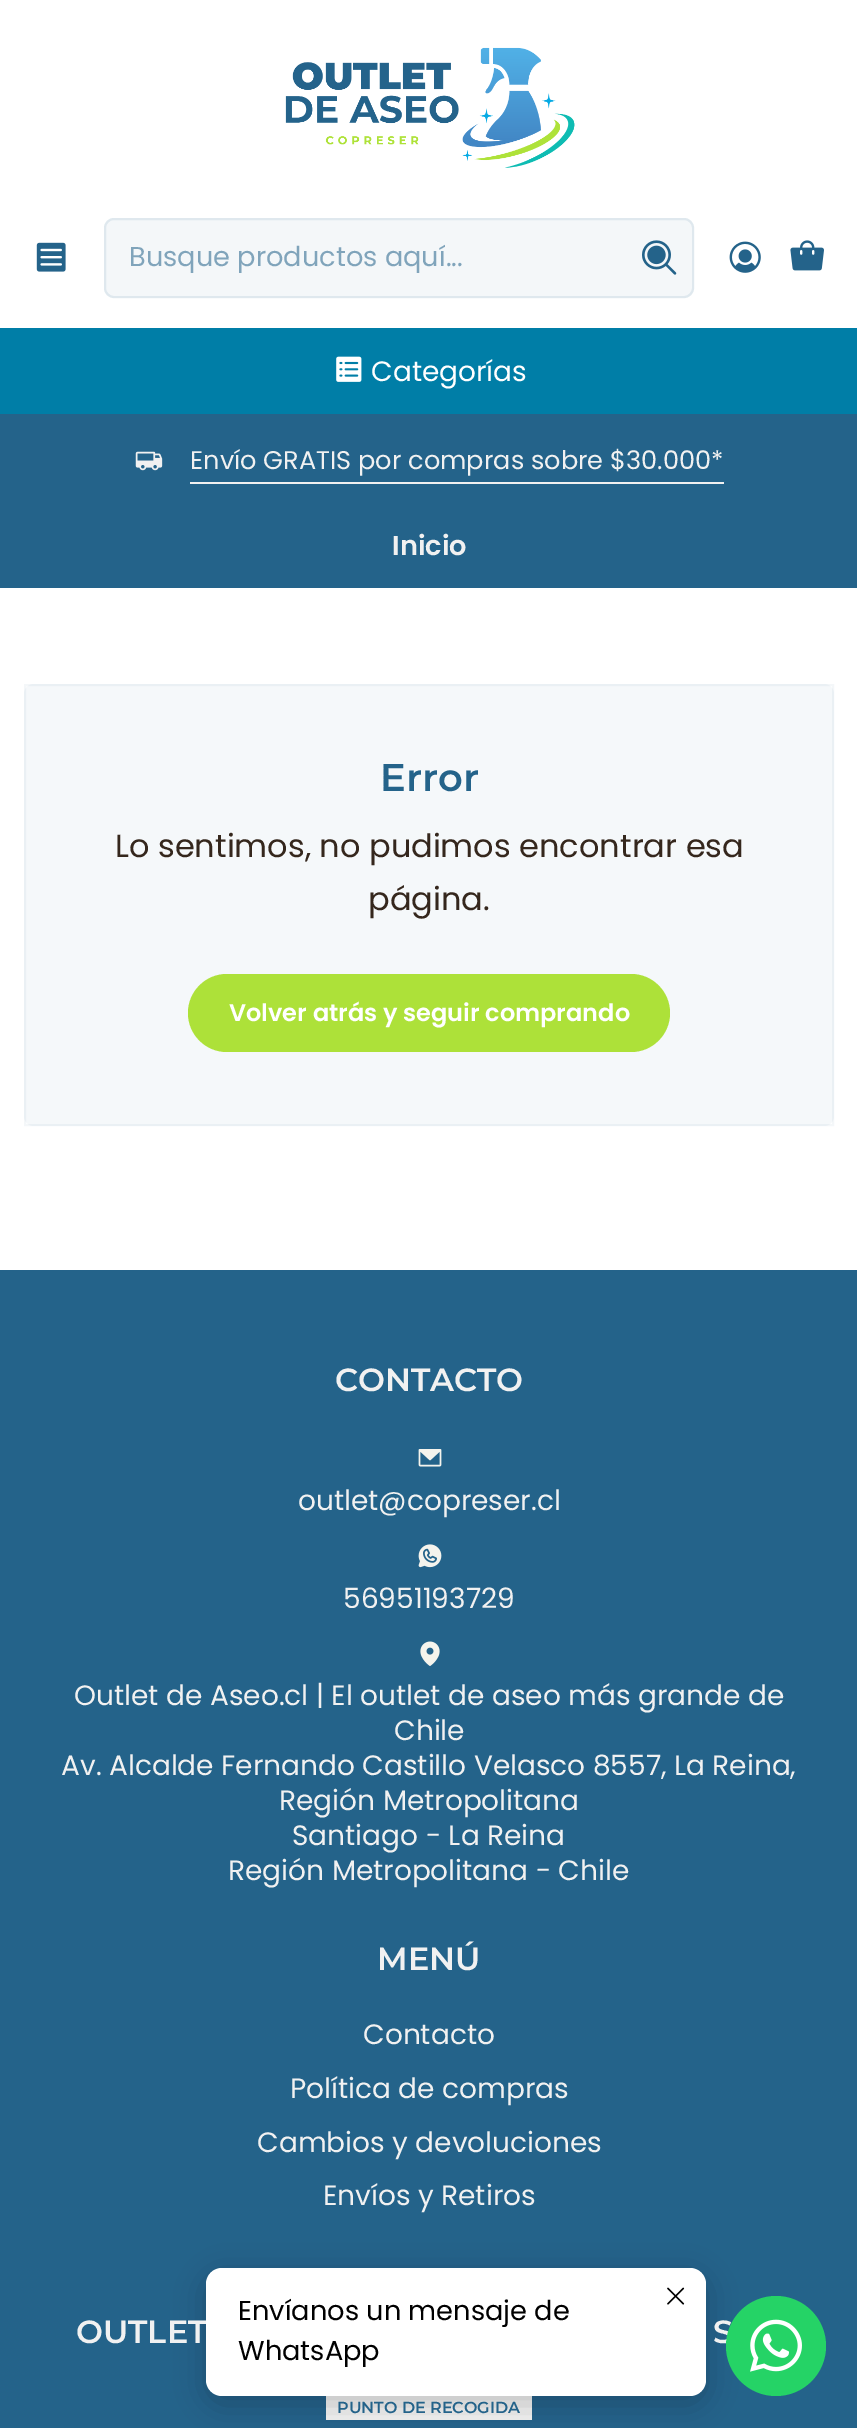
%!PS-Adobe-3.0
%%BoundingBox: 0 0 857 2428
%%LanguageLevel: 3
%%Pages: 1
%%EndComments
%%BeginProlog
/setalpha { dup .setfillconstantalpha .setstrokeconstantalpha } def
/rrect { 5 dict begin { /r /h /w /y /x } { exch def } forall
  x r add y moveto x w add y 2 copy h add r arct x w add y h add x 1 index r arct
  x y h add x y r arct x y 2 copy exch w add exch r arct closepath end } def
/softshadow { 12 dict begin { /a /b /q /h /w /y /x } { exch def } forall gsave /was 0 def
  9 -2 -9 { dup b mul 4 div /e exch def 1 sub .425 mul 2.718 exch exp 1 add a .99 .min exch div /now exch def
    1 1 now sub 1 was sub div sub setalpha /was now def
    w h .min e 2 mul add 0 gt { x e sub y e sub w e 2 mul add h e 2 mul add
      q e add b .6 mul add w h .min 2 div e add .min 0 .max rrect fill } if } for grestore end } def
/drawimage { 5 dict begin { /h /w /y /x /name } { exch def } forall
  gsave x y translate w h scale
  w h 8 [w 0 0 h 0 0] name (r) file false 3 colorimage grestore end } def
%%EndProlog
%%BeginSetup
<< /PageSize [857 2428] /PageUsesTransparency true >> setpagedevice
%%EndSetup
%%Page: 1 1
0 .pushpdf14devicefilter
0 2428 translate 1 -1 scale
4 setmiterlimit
1 setgray
0 0 857 2428 rectfill
(images/1.raw) 285 47 290 121 drawimage
(images/2.raw) 36 242 30 30 drawimage
0.957 0.969 0.976 setrgbcolor
104 218 590 80 10 rrect fill
0.1 setalpha
0.141 0.388 0.541 setrgbcolor
2 setlinewidth
105 219 588 78 9 rrect stroke
1 setalpha
(images/3.raw) 642 240 35 35 drawimage
(images/4.raw) 729 241 32 32 drawimage
(images/5.raw) 790 240 34 31 drawimage
0 0.494 0.655 setrgbcolor
0 328 857 86 rectfill
(images/6.raw) 336 356 26 26 drawimage
0.141 0.388 0.541 setrgbcolor
0 414 857 174 rectfill
(images/7.raw) 135 451 28 20 drawimage
0.945 setgray
190 482 534 2 rectfill
0.961 0.973 0.98 setrgbcolor
24 684 810 442 10 rrect fill
0.05 setalpha
0.141 0.388 0.541 setrgbcolor
25 685 808 440 rectstroke
1 setalpha
0.678 0.882 0.224 setrgbcolor
188 974 482 78 39 rrect fill
0.141 0.388 0.541 setrgbcolor
0 1270 857 1158 rectfill
(images/8.raw) 418 1449 24 18 drawimage
(images/9.raw) 418 1544 24 24 drawimage
(images/10.raw) 420 1641 20 25 drawimage
0.945 setgray
326 2396 206 24 rectfill
0 setgray
206 2276 500 128 16 15 0.2 softshadow
/Poppins-Regular [27.25 0 0 -27.25 0 0] selectfont
0.502 0.643 0.733 setrgbcolor
129 266 moveto (Busque productos aquí...) show
/Poppins-Regular [28 0 0 -28 0 0] selectfont
1 setgray
371 381 moveto (Categorías) show
/Poppins-Regular [25.6 0 0 -25.6 0 0] selectfont
0.945 setgray
190 469 moveto (Envío GRATIS por compras sobre $30.000*) show
/Poppins-SemiBold [27.25 0 0 -27.25 0 0] selectfont
392 555 moveto (Inicio) show
/Montserrat-SemiBold [38.5 0 0 -38.5 0 0] selectfont
0.141 0.388 0.541 setrgbcolor
380 791 moveto (Error) show
/Poppins-Regular [32 0 0 -32 0 0] selectfont
0.208 0.153 0.114 setrgbcolor
115 857 moveto (Lo sentimos, no pudimos encontrar esa) show
368 910 moveto (página.) show
/Poppins-SemiBold [24 0 0 -24 0 0] selectfont
1 setgray
229 1021 moveto (Volver atrás y seguir comprando) show
/Montserrat-SemiBold [32 0 0 -32 0 0] selectfont
0.945 setgray
335 1391 moveto (CONTACTO) show
/Poppins-Regular [28 0 0 -28 0 0] selectfont
298 1510 moveto (outlet@copreser.cl) show
343 1608 moveto (56951193729) show
74 1705 moveto (Outlet de Aseo.cl | El outlet de aseo más grande de) show
394 1740 moveto (Chile) show
61 1775 moveto (Av. Alcalde Fernando Castillo Velasco 8557, La Reina,) show
279 1810 moveto (Región Metropolitana) show
292 1845 moveto (Santiago - La Reina) show
228 1880 moveto (Región Metropolitana - Chile) show
/Montserrat-SemiBold [32 0 0 -32 0 0] selectfont
377 1970 moveto (MENÚ) show
/Poppins-Regular [28 0 0 -28 0 0] selectfont
363 2044 moveto (Contacto) show
290 2098 moveto (Política de compras) show
257 2152 moveto (Cambios y devoluciones) show
323 2205 moveto (Envíos y Retiros) show
/Montserrat-SemiBold [32 0 0 -32 0 0] selectfont
76 2343 moveto (OUTLET) show
713 2343 moveto (S) show
/Montserrat-SemiBold [16 0 0 -16 0 0] selectfont
0.141 0.388 0.541 setrgbcolor
337 2413 moveto (PUNTO DE RECOGIDA) show
1 setgray
206 2268 500 128 16 rrect fill
(images/11.raw) 667 2287 18 18 drawimage
/Poppins-Regular [27.25 0 0 -27.25 0 0] selectfont
0 setgray
238 2320 moveto (Envíanos un mensaje de) show
238 2360 moveto (WhatsApp) show
0.145 0.827 0.4 setrgbcolor
newpath 776 2346 50 0 360 arc closepath fill
(images/12.raw) 750 2319 52 53 drawimage
.poppdf14devicefilter showpage
%%EOF
